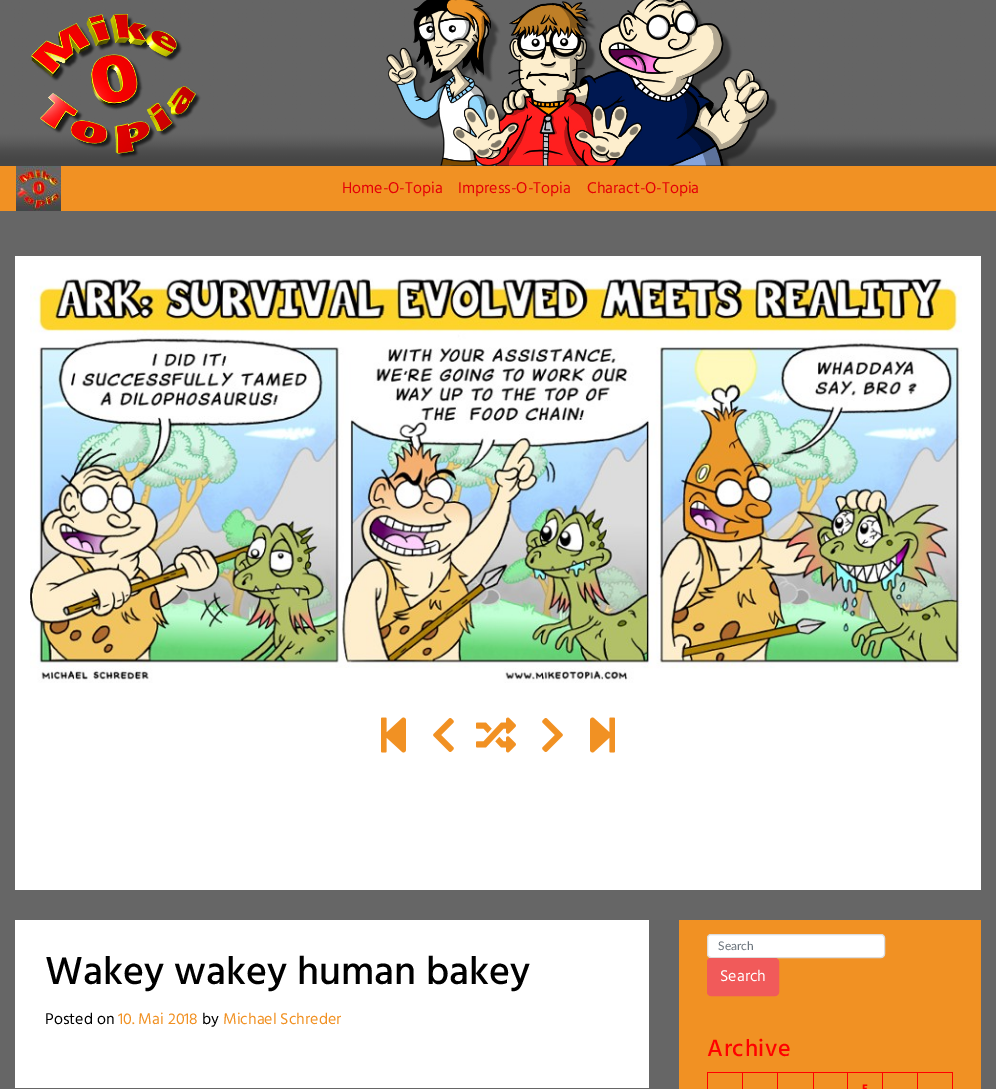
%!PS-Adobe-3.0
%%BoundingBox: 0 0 996 1089
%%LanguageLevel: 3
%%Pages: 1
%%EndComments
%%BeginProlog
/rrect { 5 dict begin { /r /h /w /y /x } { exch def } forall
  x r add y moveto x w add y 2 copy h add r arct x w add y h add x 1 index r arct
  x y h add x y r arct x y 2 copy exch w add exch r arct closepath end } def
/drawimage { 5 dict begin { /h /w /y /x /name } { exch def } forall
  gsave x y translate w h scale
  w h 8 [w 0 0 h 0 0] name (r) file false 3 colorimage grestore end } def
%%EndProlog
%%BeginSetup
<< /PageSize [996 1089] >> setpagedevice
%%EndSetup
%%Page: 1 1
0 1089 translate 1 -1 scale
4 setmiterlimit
0.4 setgray
0 0 996 1089 rectfill
(images/1.raw) 0 0 996 166 drawimage
0.945 0.569 0.137 setrgbcolor
0 166 996 45 rectfill
(images/2.raw) 16 166 45 45 drawimage
1 setgray
15 256 966 634 rectfill
(images/3.raw) 30 278 932 405 drawimage
(images/4.raw) 381 717 25 36 drawimage
(images/5.raw) 433 718 21 34 drawimage
(images/6.raw) 476 717 40 36 drawimage
(images/7.raw) 542 718 21 34 drawimage
(images/8.raw) 590 717 25 36 drawimage
15 920 634 168 rectfill
0.945 0.569 0.137 setrgbcolor
679 920 302 169 rectfill
1 setgray
707.5 934.5 177 23 3.5 rrect gsave fill grestore
0.867 setgray
stroke
0.945 0.353 0.353 setrgbcolor
707.5 958.5 71 37 3.5 rrect gsave fill grestore
stroke
1 0 0 setrgbcolor
917 1072 36 1 rectfill
917 1072 1 17 rectfill
882 1072 36 1 rectfill
882 1072 1 17 rectfill
847 1072 36 1 rectfill
847 1072 1 17 rectfill
813 1072 35 1 rectfill
813 1072 1 17 rectfill
777 1072 37 1 rectfill
777 1072 1 17 rectfill
742 1072 36 1 rectfill
742 1072 1 17 rectfill
707 1072 36 1 rectfill
707 1072 1 17 rectfill
952 1072 1 17 rectfill
/Hind-Regular [16 0 0 -16 0 0] selectfont
0.898 0 0.027 setrgbcolor
342 193 moveto (Home-O-Topia) show
458 193 moveto (Impress-O-Topia) show
587 193 moveto (Charact-O-Topia) show
/Hind-Medium [40 0 0 -40 0 0] selectfont
0 setgray
45 984 moveto (Wakey wakey human bakey) show
/Hind-Regular [16 0 0 -16 0 0] selectfont
45 1024 moveto (Posted on) show
0.945 0.569 0.137 setrgbcolor
118 1024 moveto (10. Mai 2018) show
0 setgray
202 1024 moveto (by) show
0.945 0.569 0.137 setrgbcolor
223 1024 moveto (Michael Schreder) show
/Lato-Regular [12 0 0 -12 0 0] selectfont
0.424 0.459 0.49 setrgbcolor
718 950 moveto (Search) show
/Hind-Regular [16 0 0 -16 0 0] selectfont
1 setgray
720 981 moveto (Search) show
/Hind-Medium [24 0 0 -24 0 0] selectfont
1 0 0 setrgbcolor
707 1056 moveto 0.75 0 (Archive) ashow
/Hind-Bold [11 0 0 -11 0 0] selectfont
862 1092 moveto 0.75 0 (F) ashow
showpage
%%EOF
